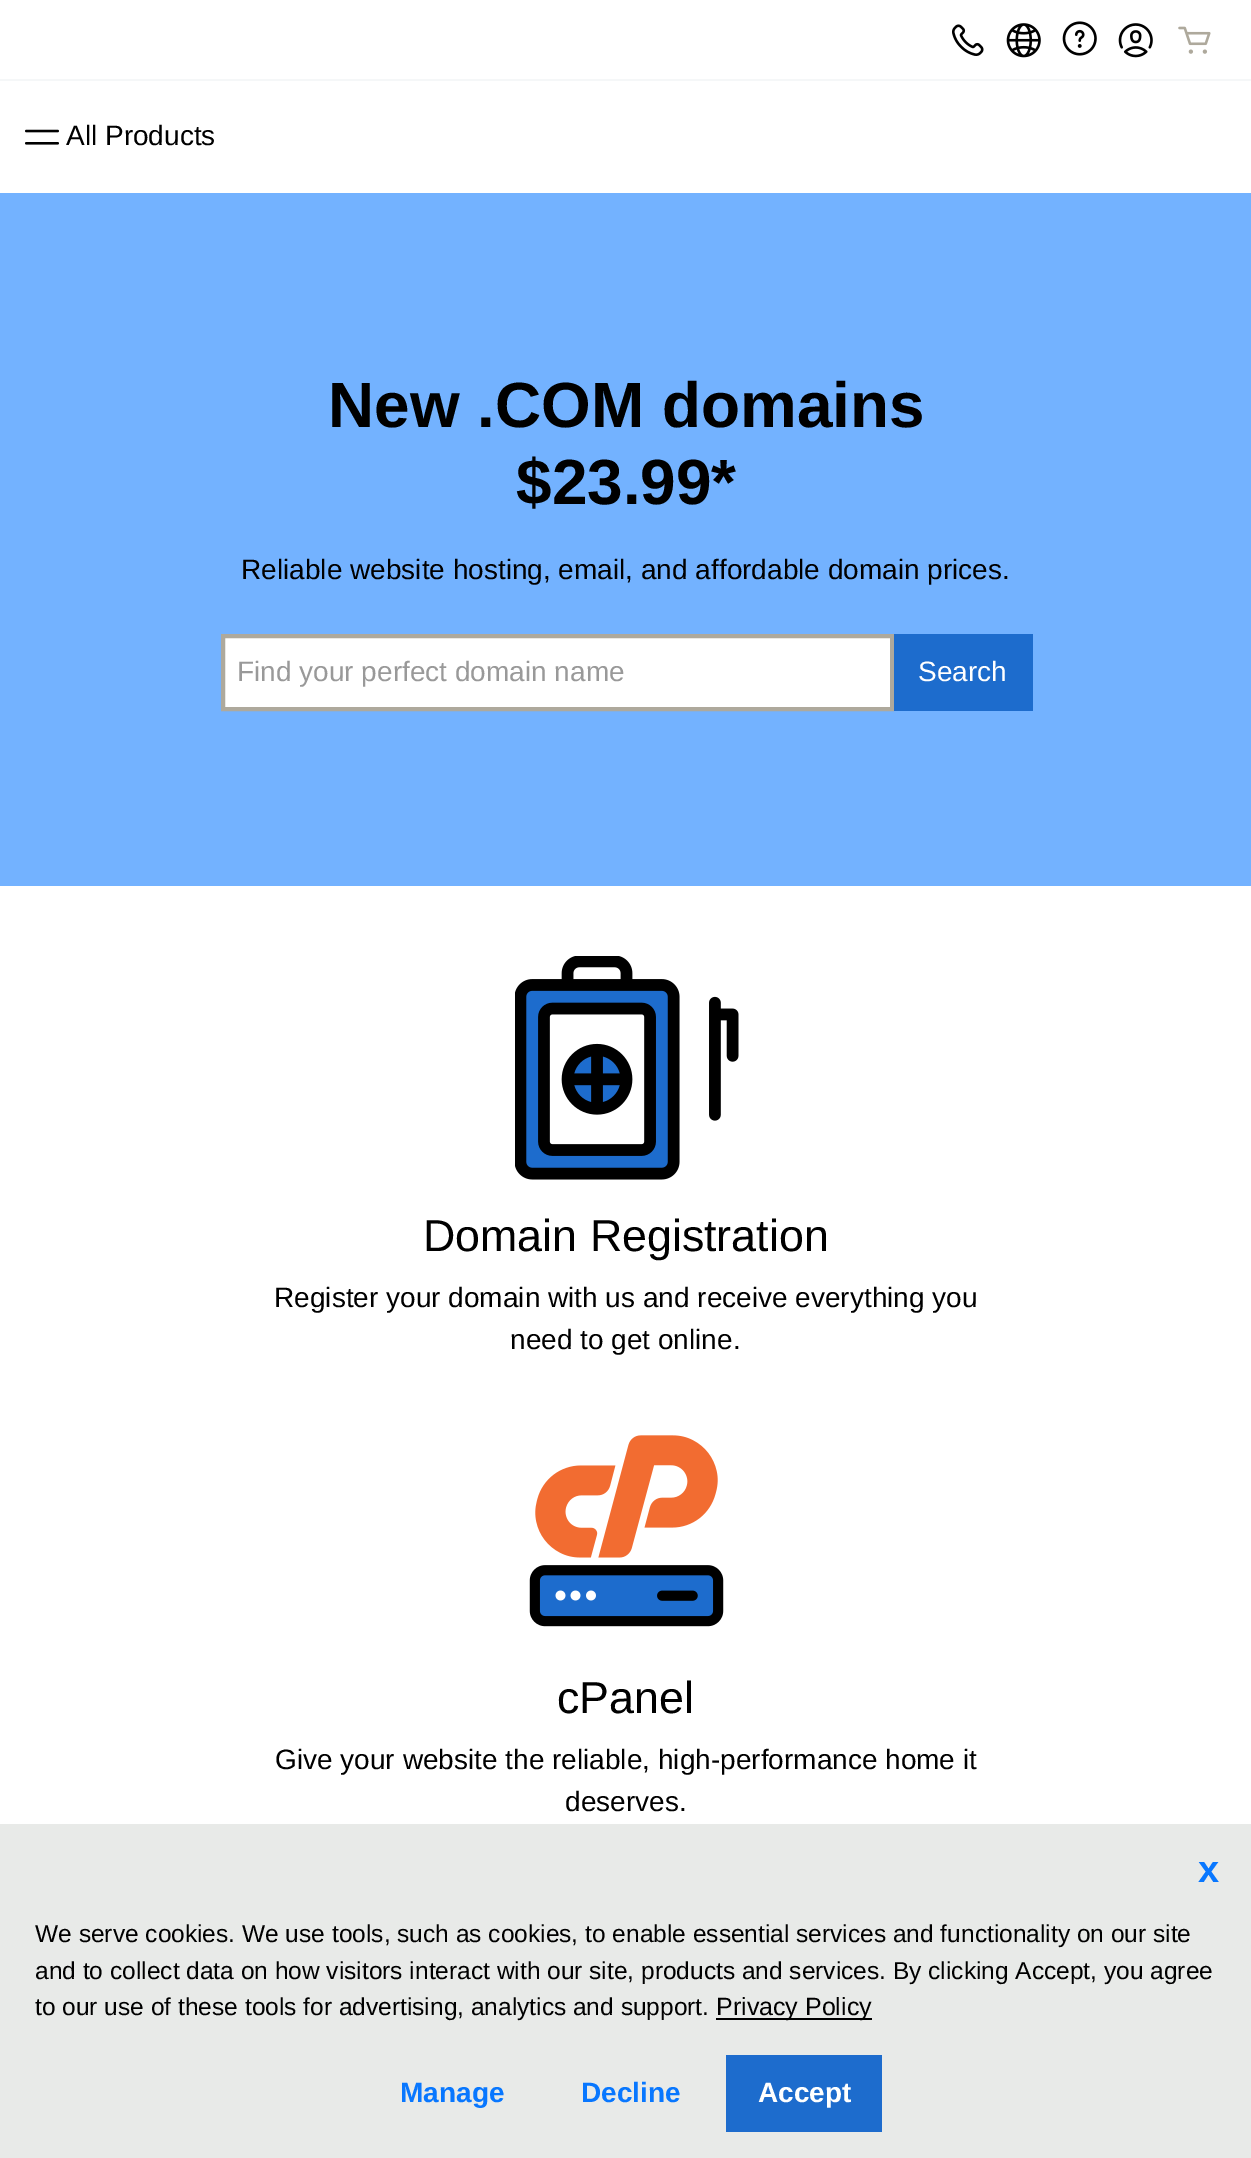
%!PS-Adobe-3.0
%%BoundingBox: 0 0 1251 2158
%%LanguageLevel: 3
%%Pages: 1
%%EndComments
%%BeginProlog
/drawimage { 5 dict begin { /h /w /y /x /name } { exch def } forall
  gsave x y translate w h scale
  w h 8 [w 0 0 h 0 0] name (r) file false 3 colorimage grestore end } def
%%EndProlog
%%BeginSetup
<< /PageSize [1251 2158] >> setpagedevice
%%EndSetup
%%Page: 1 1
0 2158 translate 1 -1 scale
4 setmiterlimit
1 setgray
0 0 1251 2158 rectfill
0.961 0.969 0.973 setrgbcolor
0 79 1251 2 rectfill
(images/1.raw) 952 24 32 32 drawimage
(images/2.raw) 1006 23 35 35 drawimage
(images/3.raw) 1062 21 35 35 drawimage
(images/4.raw) 1118 23 35 35 drawimage
(images/5.raw) 1178 26 33 28 drawimage
(images/6.raw) 25 129 34 16 drawimage
0.451 0.698 1 setrgbcolor
0 193 1251 693 rectfill
1 setgray
newpath 223 636 moveto 892 636 lineto 892 709 lineto 223 709 lineto closepath gsave fill grestore
0.682 0.663 0.612 setrgbcolor
4 setlinewidth
stroke
0.114 0.424 0.804 setrgbcolor
894 634 139 77 rectfill
(images/7.raw) 515 956 224 224 drawimage
(images/8.raw) 529 1435 195 192 drawimage
0.91 0.918 0.91 setrgbcolor
0 1824 1251 334 rectfill
0 setgray
716 2018 156 2 rectfill
0.114 0.424 0.804 setrgbcolor
726 2055 156 77 rectfill
/LiberationSans-Regular [28 0 0 -28 0 0] selectfont
0 setgray
66 145 moveto (All Products) show
/LiberationSans-Bold [63.9 0 0 -63.9 0 0] selectfont
328 427 moveto (New .COM domains) show
516 504 moveto ($23.99*) show
/LiberationSans-Regular [28 0 0 -28 0 0] selectfont
241 579 moveto (Reliable website hosting, email, and affordable domain prices.) show
0.6 setgray
237 681 moveto (Find your perfect domain name) show
1 setgray
918 681 moveto (Search) show
/LiberationSans-Regular [44.75 0 0 -44.75 0 0] selectfont
0 setgray
423 1251 moveto (Domain Registration) show
/LiberationSans-Regular [28 0 0 -28 0 0] selectfont
274 1307 moveto (Register your domain with us and receive everything you) show
510 1349 moveto (need to get online.) show
/LiberationSans-Regular [44.75 0 0 -44.75 0 0] selectfont
557 1713 moveto (cPanel) show
/LiberationSans-Regular [28 0 0 -28 0 0] selectfont
275 1769 moveto (Give your website the reliable, high-performance home it) show
565 1811 moveto (deserves.) show
/LiberationSans-Bold [38 0 0 -38 0 0] selectfont
0.031 0.467 1 setrgbcolor
1198 1882 moveto (x) show
/LiberationSans-Regular [24.5 0 0 -24.5 0 0] selectfont
0 setgray
35 1942 moveto (We serve cookies. We use tools, such as cookies, to enable essential services and functionality on our site) show
35 1979 moveto (and to collect data on how visitors interact with our site, products and services. By clicking Accept, you agree) show
35 2015 moveto (to our use of these tools for advertising, analytics and support.) show
/LiberationSans-Regular [25 0 0 -25 0 0] selectfont
716 2015 moveto (Privacy Policy) show
/LiberationSans-Bold [28 0 0 -28 0 0] selectfont
0.031 0.467 1 setrgbcolor
400 2102 moveto (Manage) show
581 2102 moveto (Decline) show
1 setgray
758 2102 moveto (Accept) show
showpage
%%EOF
